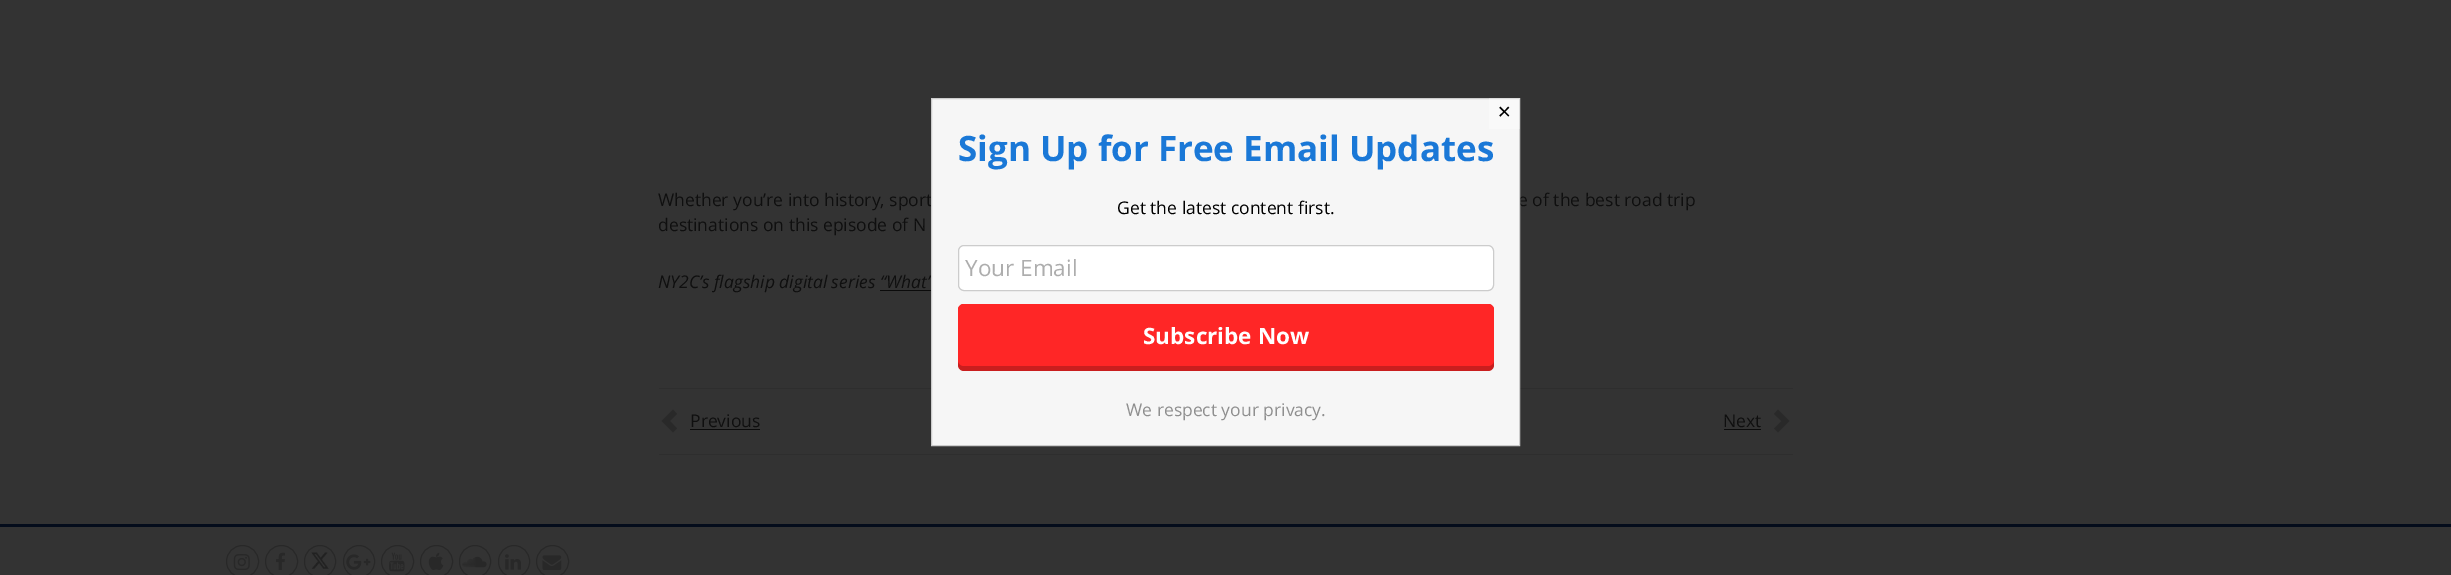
%!PS-Adobe-3.0
%%BoundingBox: 0 0 2451 575
%%LanguageLevel: 3
%%Pages: 1
%%EndComments
%%BeginProlog
/setalpha { dup .setfillconstantalpha .setstrokeconstantalpha } def
/rrect { 5 dict begin { /r /h /w /y /x } { exch def } forall
  x r add y moveto x w add y 2 copy h add r arct x w add y h add x 1 index r arct
  x y h add x y r arct x y 2 copy exch w add exch r arct closepath end } def
/drawimage { 5 dict begin { /h /w /y /x /name } { exch def } forall
  gsave x y translate w h scale
  w h 8 [w 0 0 h 0 0] name (r) file false 3 colorimage grestore end } def
%%EndProlog
%%BeginSetup
<< /PageSize [2451 575] /PageUsesTransparency true >> setpagedevice
%%EndSetup
%%Page: 1 1
0 .pushpdf14devicefilter
0 575 translate 1 -1 scale
4 setmiterlimit
0.2 setgray
0 0 2451 575 rectfill
0.043 setgray
880 290 51 1 rectfill
0.18 setgray
659 388 1134 1 rectfill
659 454 1134 1 rectfill
0.161 setgray
newpath 677 414 moveto 670 421 lineto 677 428.5 lineto 673 432.5 lineto 661.5 421 lineto 673 409.5 lineto closepath fill
0.043 setgray
690 429 70 1 rectfill
1724 429 37 1 rectfill
0.161 setgray
newpath 1789.5 421 moveto 1778 432.5 lineto 1774 428.5 lineto 1781.5 421 lineto 1774 414 lineto 1778 409.5 lineto closepath fill
0.016 0.047 0.106 setrgbcolor
0 524 2451 3 rectfill
0.157 setgray
newpath 242.5 561.5 16 0 360 arc closepath stroke
(images/1.raw) 233 554 17 16 drawimage
newpath 281.5 561.5 16 0 360 arc closepath stroke
(images/2.raw) 276 552 9 18 drawimage
(images/3.raw) 311 552 18 17 drawimage
304.5 545.5 31 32 15.5 rrect stroke
343.5 545.5 31 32 15.5 rrect stroke
(images/4.raw) 346 554 25 16 drawimage
newpath 397.5 561.5 16 0 360 arc closepath stroke
(images/5.raw) 389 552 16 20 drawimage
newpath 436.5 561.5 16 0 360 arc closepath stroke
(images/6.raw) 428 552 16 18 drawimage
459.5 545.5 31 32 15.5 rrect stroke
(images/7.raw) 462 556 25 12 drawimage
498.5 545.5 31 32 15.5 rrect stroke
(images/8.raw) 505 554 16 16 drawimage
newpath 552.5 561.5 16 0 360 arc closepath stroke
(images/9.raw) 542 555 20 15 drawimage
/OpenSans-Regular [17.5 0 0 -17.5 0 0] selectfont
0.059 setgray
658 206 moveto (Whether you’re into history, sport) show
1518 206 moveto (e of the best road trip) show
658 231 moveto (destinations on this episode of N) show
/OpenSans-Italic [17.5 0 0 -17.5 0 0] selectfont
658 288 moveto (NY2C’s flagship digital series) show
880 288 moveto (“What’) show
0.965 setgray
newpath 931.5 98.5 moveto 1519.5 98.5 lineto 1519.5 445.5 lineto 931.5 445.5 lineto closepath gsave fill grestore
0.8 setgray
stroke
0.3 setalpha
1 setgray
1489 98 31 31 rectfill
/DejaVuSans-Regular [17.5 0 0 -17.5 0 0] selectfont
1 setalpha
0 setgray
1497 118 moveto (✕) show
1 setgray
958.5 245.5 535 45 5.5 rrect gsave fill grestore
0.8 setgray
stroke
/OpenSans-Regular [22.5 0 0 -22.5 0 0] selectfont
0.678 setgray
965 276 moveto (Your Email) show
0.788 0.118 0.118 setrgbcolor
958 304 536 67 6 rrect fill
1 0.149 0.149 setrgbcolor
958 304 536 62 6 rrect fill
/OpenSans-Bold [22.5 0 0 -22.5 0 0] selectfont
1 setgray
1143 344 moveto (Subscribe Now) show
/OpenSans-Regular [17.5 0 0 -17.5 0 0] selectfont
0.561 setgray
1126 416 moveto (We respect your privacy.) show
0 setgray
1117 214 moveto (Get the latest content first.) show
/OpenSans-Bold [35 0 0 -35 0 0] selectfont
0.102 0.471 0.843 setrgbcolor
958 161 moveto (Sign Up for Free Email Updates) show
/OpenSans-Regular [17.5 0 0 -17.5 0 0] selectfont
0.059 setgray
690 427 moveto (Previous) show
1723 427 moveto (Next) show
.poppdf14devicefilter showpage
%%EOF
